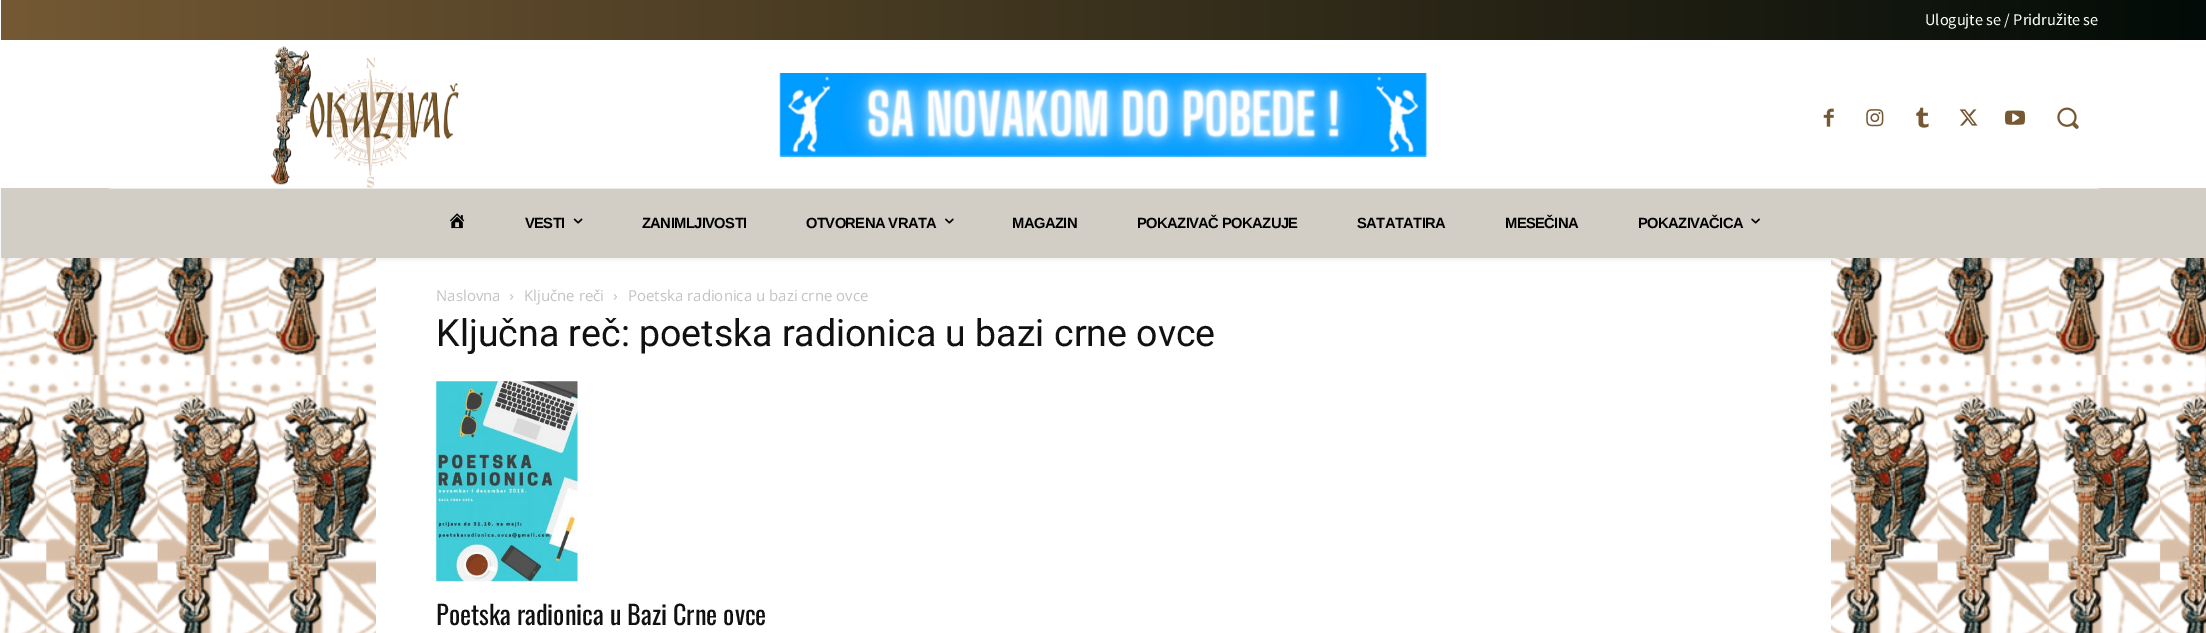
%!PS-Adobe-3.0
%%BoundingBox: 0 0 2206 633
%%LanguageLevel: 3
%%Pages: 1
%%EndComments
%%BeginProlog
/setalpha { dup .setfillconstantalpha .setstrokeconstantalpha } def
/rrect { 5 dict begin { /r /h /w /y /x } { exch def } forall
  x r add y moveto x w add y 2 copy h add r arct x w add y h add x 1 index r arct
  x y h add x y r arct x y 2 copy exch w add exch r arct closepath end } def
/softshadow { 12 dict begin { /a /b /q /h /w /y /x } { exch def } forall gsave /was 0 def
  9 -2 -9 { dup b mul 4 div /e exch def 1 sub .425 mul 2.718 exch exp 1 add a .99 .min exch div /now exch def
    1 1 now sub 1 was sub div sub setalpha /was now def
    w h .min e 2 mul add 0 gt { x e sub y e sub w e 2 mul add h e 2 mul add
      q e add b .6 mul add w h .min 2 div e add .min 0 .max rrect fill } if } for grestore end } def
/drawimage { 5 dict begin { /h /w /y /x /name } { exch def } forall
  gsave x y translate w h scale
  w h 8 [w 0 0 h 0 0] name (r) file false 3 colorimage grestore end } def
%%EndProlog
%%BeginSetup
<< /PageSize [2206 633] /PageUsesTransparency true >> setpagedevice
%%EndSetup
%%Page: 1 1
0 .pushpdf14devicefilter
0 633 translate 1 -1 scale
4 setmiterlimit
1 setgray
0 0 2206 633 rectfill
(images/1.raw) 0 258 2206 375 drawimage
gsave newpath 1 0 moveto 2206 0 lineto 2206 40 lineto 1 40 lineto closepath clip newpath
<< /ShadingType 2 /ColorSpace /DeviceRGB /Coords [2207 20 0.6 20] /Extend [true true] /Function << /FunctionType 2 /Domain [0 1] /C0 [0.008 0.043 0.027] /C1 [0.455 0.349 0.204] /N 1 >> >> shfill grestore
(images/2.raw) 271 46 188 142 drawimage
(images/3.raw) 779 73 648 84 drawimage
(images/4.raw) 1823 108 11 19 drawimage
(images/5.raw) 1866 109 18 18 drawimage
(images/6.raw) 1916 107 13 21 drawimage
(images/7.raw) 1959 109 19 17 drawimage
(images/8.raw) 2005 110 20 15 drawimage
(images/9.raw) 2057 107 22 22 drawimage
0.824 0.804 0.773 setrgbcolor
1 188 2205 70 rectfill
0.918 setgray
109 188 1990 1 rectfill
1 setgray
376 258 1455 375 rectfill
gsave
newpath 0 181 moveto 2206 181 lineto 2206 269 lineto 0 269 lineto closepath 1 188 moveto 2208 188 lineto 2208 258 lineto 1 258 lineto closepath eoclip newpath
0 setgray
1 190 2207 70 0 2.5 0.06 softshadow
grestore
(images/10.raw) 450 213 15 16 drawimage
(images/11.raw) 573 218 10 6 drawimage
(images/12.raw) 945 218 9 6 drawimage
(images/13.raw) 1751 218 9 6 drawimage
(images/14.raw) 510 294 4 6 drawimage
(images/15.raw) 613 294 4 6 drawimage
(images/16.raw) 436 381 142 201 drawimage
/SourceSansPro-Regular [16.25 0 0 -16.25 0 0] selectfont
1925 25 moveto (Ulogujte se / Pridružite se) show
/LiberationSans-Bold [14.75 0 0 -14.75 0 0] selectfont
0 setgray
525 228 moveto -0.6 0 (VESTI) ashow
642 228 moveto -0.6 0 (ZANIMLJIVOSTI) ashow
806 228 moveto -0.6 0 (OTVORENA VRATA) ashow
1012 228 moveto -0.6 0 (MAGAZIN) ashow
1137 228 moveto -0.6 0 (POKAZIVAČ POKAZUJE) ashow
1357 228 moveto -0.6 0 (SATATATIRA) ashow
1505 228 moveto -0.6 0 (MESEČINA) ashow
1638 228 moveto -0.6 0 (POKAZIVAČICA) ashow
/OpenSans-Regular [15 0 0 -15 0 0] selectfont
0.765 setgray
436 301 moveto (Naslovna) show
524 301 moveto (Ključne reči) show
628 301 moveto (Poetska radionica u bazi crne ovce) show
/Roboto-Regular [37.5 0 0 -37.5 0 0] selectfont
0.067 setgray
436 346 moveto (Ključna reč: poetska radionica u bazi crne ovce) show
/Oswald-Regular [26.25 0 0 -26.25 0 0] selectfont
436 625 moveto (Poetska radionica u Bazi Crne ovce) show
.poppdf14devicefilter showpage
%%EOF
